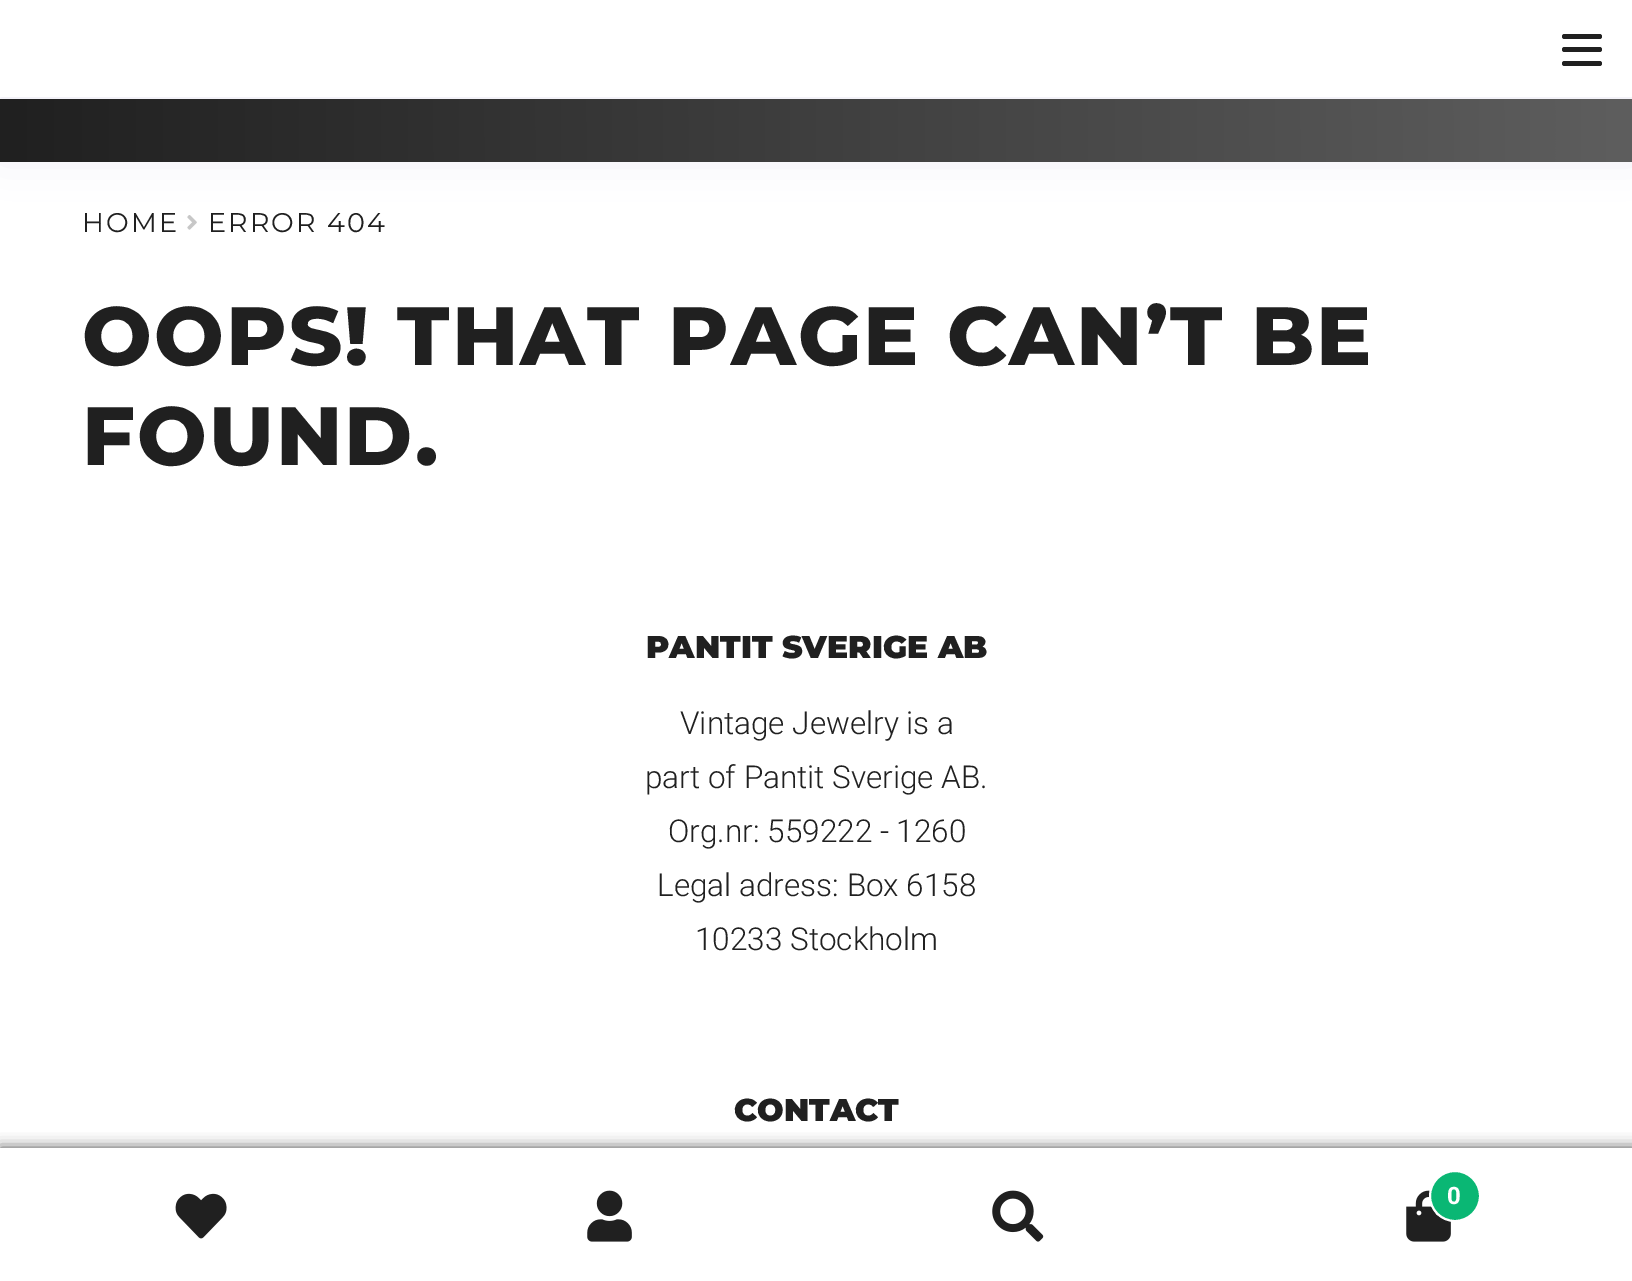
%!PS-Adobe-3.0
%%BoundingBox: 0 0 1632 1281
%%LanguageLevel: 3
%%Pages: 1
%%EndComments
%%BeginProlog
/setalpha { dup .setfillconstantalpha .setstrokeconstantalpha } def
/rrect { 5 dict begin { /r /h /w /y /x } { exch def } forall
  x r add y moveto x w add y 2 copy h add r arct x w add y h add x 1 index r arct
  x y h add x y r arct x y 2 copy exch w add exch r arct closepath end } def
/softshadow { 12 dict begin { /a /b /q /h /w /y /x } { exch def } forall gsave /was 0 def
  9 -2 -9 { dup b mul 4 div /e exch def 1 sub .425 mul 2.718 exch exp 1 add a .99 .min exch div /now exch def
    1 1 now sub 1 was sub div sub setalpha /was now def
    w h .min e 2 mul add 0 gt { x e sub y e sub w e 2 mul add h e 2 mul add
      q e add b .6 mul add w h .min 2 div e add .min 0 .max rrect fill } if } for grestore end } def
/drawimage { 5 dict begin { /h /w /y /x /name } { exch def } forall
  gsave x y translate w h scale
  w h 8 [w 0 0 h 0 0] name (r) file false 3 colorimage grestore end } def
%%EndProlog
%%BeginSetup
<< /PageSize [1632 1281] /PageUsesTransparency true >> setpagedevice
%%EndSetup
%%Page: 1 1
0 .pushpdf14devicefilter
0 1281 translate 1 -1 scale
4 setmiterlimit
1 setgray
0 0 1632 1281 rectfill
(images/1.raw) 187 215 10 15 drawimage
gsave
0 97 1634 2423 rectclip
0.447 0.396 0.698 setrgbcolor
2 97 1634 56 0 21.5 0.16 softshadow
grestore
0.125 setgray
1562 34 40 5 2.5 rrect fill
1562 47 40 5 2.5 rrect fill
1562 61 40 5 2.5 rrect fill
gsave newpath 0 99 moveto 1632 99 lineto 1632 162 lineto 0 162 lineto closepath clip newpath
<< /ShadingType 2 /ColorSpace /DeviceRGB /Coords [0 131 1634 130] /Extend [true true] /Function << /FunctionType 2 /Domain [0 1] /C0 [0.125 0.125 0.125] /C1 [0.369 0.369 0.369] /N 1 >> >> shfill grestore
0 setgray
0 1148 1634 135 0 7 0.7 softshadow
1 setgray
0 1148 1632 133 rectfill
(images/2.raw) 175 1193 52 46 drawimage
(images/3.raw) 587 1190 45 52 drawimage
(images/4.raw) 992 1190 52 52 drawimage
(images/5.raw) 1406 1190 45 52 drawimage
0.039 0.718 0.455 setrgbcolor
newpath 1455 1196 25 0 360 arc closepath gsave fill grestore
1 setgray
2 setlinewidth
stroke
/Montserrat-Thin [27 0 0 -27 0 0] selectfont
0.125 setgray
82 232 moveto 2.1 0 (HOME) ashow
208 232 moveto 2.1 0 (ERROR 404) ashow
/Montserrat-ExtraBold [82.5 0 0 -82.5 0 0] selectfont
82 365 moveto 2.1 0 (OOPS! THAT PAGE CAN’T BE) ashow
82 465 moveto 2.1 0 (FOUND.) ashow
/Montserrat-Black [31.5 0 0 -31.5 0 0] selectfont
646 658 moveto (PANTIT SVERIGE AB) show
/Roboto-Light [31.5 0 0 -31.5 0 0] selectfont
680 734 moveto (Vintage Jewelry is a) show
645 788 moveto (part of Pantit Sverige AB.) show
668 842 moveto (Org.nr: 559222 - 1260) show
657 896 moveto (Legal adress: Box 6158) show
695 950 moveto (10233 Stockholm) show
/Montserrat-Black [31.5 0 0 -31.5 0 0] selectfont
734 1121 moveto (CONTACT) show
/Roboto-Bold [24 0 0 -24 0 0] selectfont
1 setgray
1447 1204 moveto 2.1 0 (0) ashow
.poppdf14devicefilter showpage
%%EOF
